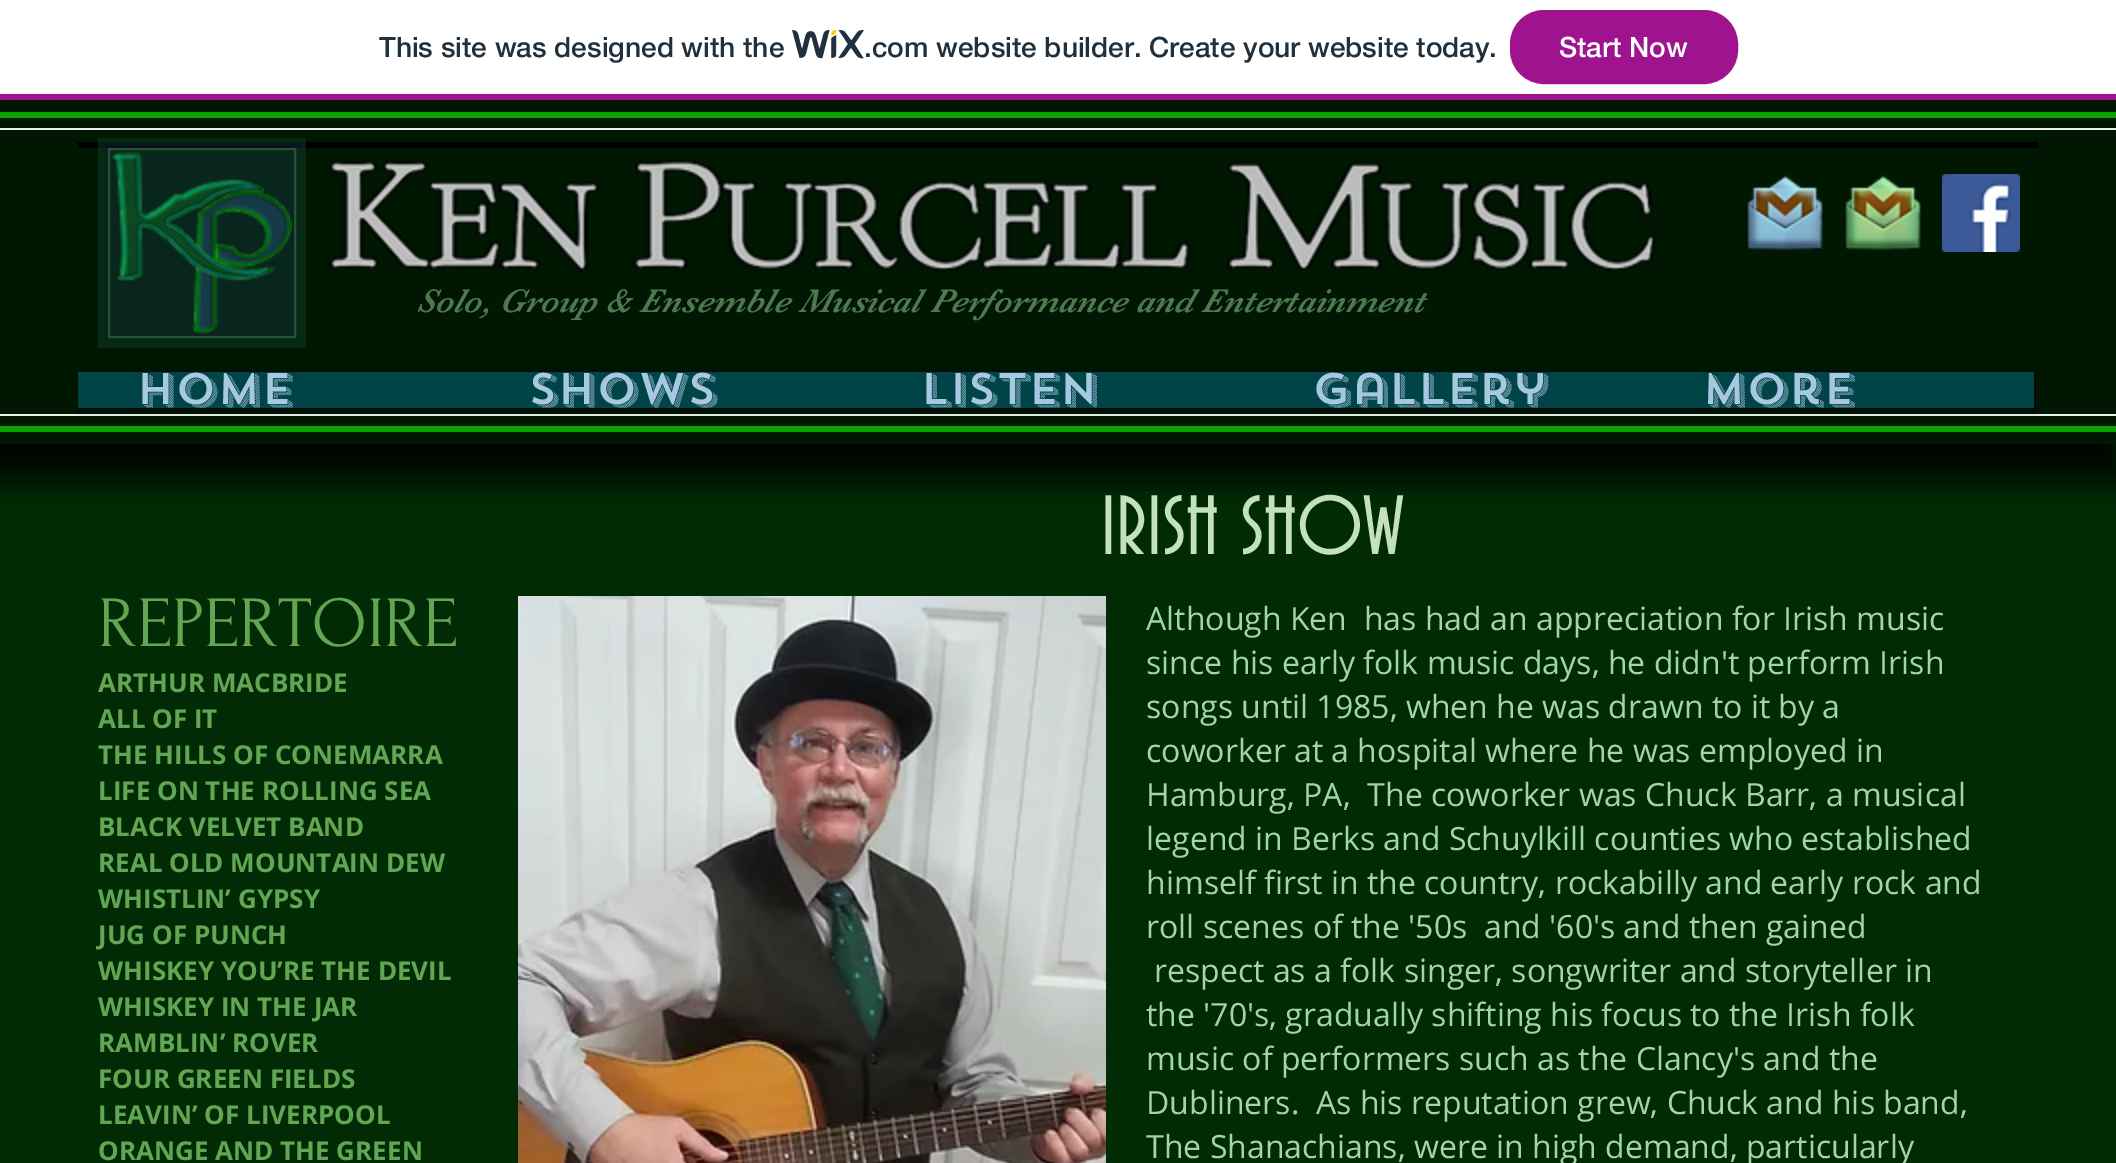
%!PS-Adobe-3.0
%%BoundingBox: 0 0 2116 1163
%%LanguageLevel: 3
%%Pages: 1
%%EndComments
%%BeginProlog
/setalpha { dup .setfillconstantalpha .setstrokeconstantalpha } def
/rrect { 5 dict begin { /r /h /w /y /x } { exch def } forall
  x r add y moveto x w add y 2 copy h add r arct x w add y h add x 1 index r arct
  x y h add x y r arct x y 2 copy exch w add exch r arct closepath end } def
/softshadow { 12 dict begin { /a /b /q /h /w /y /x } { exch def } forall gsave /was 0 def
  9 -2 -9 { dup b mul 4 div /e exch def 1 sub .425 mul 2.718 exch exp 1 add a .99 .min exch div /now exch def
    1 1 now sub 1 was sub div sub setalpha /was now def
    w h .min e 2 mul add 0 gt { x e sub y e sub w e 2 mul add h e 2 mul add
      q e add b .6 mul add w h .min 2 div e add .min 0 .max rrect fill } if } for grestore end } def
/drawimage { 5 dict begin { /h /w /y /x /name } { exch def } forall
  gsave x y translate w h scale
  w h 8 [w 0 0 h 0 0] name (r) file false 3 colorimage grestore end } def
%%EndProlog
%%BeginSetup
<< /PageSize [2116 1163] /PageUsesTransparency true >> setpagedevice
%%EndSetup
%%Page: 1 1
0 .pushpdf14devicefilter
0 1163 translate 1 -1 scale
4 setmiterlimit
0 0.169 0.016 setrgbcolor
0 0 2116 1163 rectfill
0 setgray
-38 92 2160 388 0 15 0.9 softshadow
1 setgray
0 0 2116 94 rectfill
0.627 0.075 0.557 setrgbcolor
0 94 2116 6 rectfill
(images/1.raw) 792 30 72 29 drawimage
1511 11 226 72 33 rrect gsave fill grestore
2 setlinewidth
stroke
0 0.09 0.008 setrgbcolor
0 100 2116 344 rectfill
0.031 0.149 0.118 setrgbcolor
98 138 208 210 rectfill
0.039 0.635 0.004 setrgbcolor
0 112 2116 6 rectfill
0 426 2116 6 rectfill
0.925 0.941 0.945 setrgbcolor
0 128 2116 2 rectfill
0 414 2116 2 rectfill
0 setgray
78 142 1960 6 rectfill
0.031 0.078 0.114 setrgbcolor
98 142 208 6 rectfill
0.31 setalpha
0 0.208 0.004 setrgbcolor
6 setlinewidth
101 141 202 204 rectstroke
1 setalpha
(images/2.raw) 112 152 180 182 drawimage
0.157 0.325 0.192 setrgbcolor
2 setlinewidth
109 149 186 188 rectstroke
(images/3.raw) 329 159 1327 113 drawimage
(images/4.raw) 1746 175 77 76 drawimage
(images/5.raw) 1844 175 77 76 drawimage
(images/6.raw) 1942 174 78 78 drawimage
0 setgray
80 374 1956 36 0 3 0.7 softshadow
0 0.267 0.282 setrgbcolor
78 372 1956 36 rectfill
(images/7.raw) 518 596 588 567 drawimage
/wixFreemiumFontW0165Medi-Medium [28 0 0 -28 0 0] selectfont
0.125 0.188 0.235 setrgbcolor
379 57 moveto (This site was designed with the) show
864 57 moveto (.com website builder. Create your website today.) show
1 setgray
1559 57 moveto (Start Now) show
/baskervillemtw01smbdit-Italic [34 0 0 -34 0 0] selectfont
0.306 0.471 0.31 setrgbcolor
416 312 moveto (Solo, Group & Ensemble Musical Performance and Entertainment) show
/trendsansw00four-Medium [44 0 0 -44 0 0] selectfont
0.651 0.784 0.878 setrgbcolor
136 404 moveto (Home) show
528 404 moveto (Shows) show
920 404 moveto (Listen) show
1312 404 moveto (Gallery) show
1702 404 moveto (More) show
/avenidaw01-Regular [88 0 0 -88 0 0] selectfont
0.765 0.882 0.737 setrgbcolor
1101 554 moveto (IRISH SHOW) show
/Forum-Regular [72 0 0 -72 0 0] selectfont
0.384 0.651 0.325 setrgbcolor
98 646 moveto (REPERTOIRE) show
/OpenSans-Bold [26 0 0 -26 0 0] selectfont
98 692 moveto (ARTHUR MACBRIDE) show
98 728 moveto (ALL OF IT) show
98 764 moveto (THE HILLS OF CONEMARRA) show
98 800 moveto (LIFE ON THE ROLLING SEA) show
98 836 moveto (BLACK VELVET BAND) show
98 872 moveto (REAL OLD MOUNTAIN DEW) show
98 908 moveto (WHISTLIN’ GYPSY) show
98 944 moveto (JUG OF PUNCH) show
98 980 moveto (WHISKEY YOU’RE THE DEVIL) show
98 1016 moveto (WHISKEY IN THE JAR) show
98 1052 moveto (RAMBLIN’ ROVER) show
98 1088 moveto (FOUR GREEN FIELDS) show
98 1124 moveto (LEAVIN’ OF LIVERPOOL) show
98 1160 moveto (ORANGE AND THE GREEN) show
/OpenSans-Regular [32 0 0 -32 0 0] selectfont
0.631 0.843 0.635 setrgbcolor
1146 630 moveto (Although Ken  has had an appreciation for Irish music) show
1146 674 moveto (since his early folk music days, he didn't perform Irish) show
1146 718 moveto (songs until 1985, when he was drawn to it by a) show
1146 762 moveto (coworker at a hospital where he was employed in) show
1146 806 moveto (Hamburg, PA,  The coworker was Chuck Barr, a musical) show
1146 850 moveto (legend in Berks and Schuylkill counties who established) show
1146 894 moveto (himself first in the country, rockabilly and early rock and) show
1146 938 moveto (roll scenes of the '50s  and '60's and then gained) show
1154 982 moveto (respect as a folk singer, songwriter and storyteller in) show
1146 1026 moveto (the '70's, gradually shifting his focus to the Irish folk) show
1146 1070 moveto (music of performers such as the Clancy's and the) show
1146 1114 moveto (Dubliners.  As his reputation grew, Chuck and his band,) show
1146 1158 moveto (The Shanachians, were in high demand, particularly) show
.poppdf14devicefilter showpage
%%EOF
